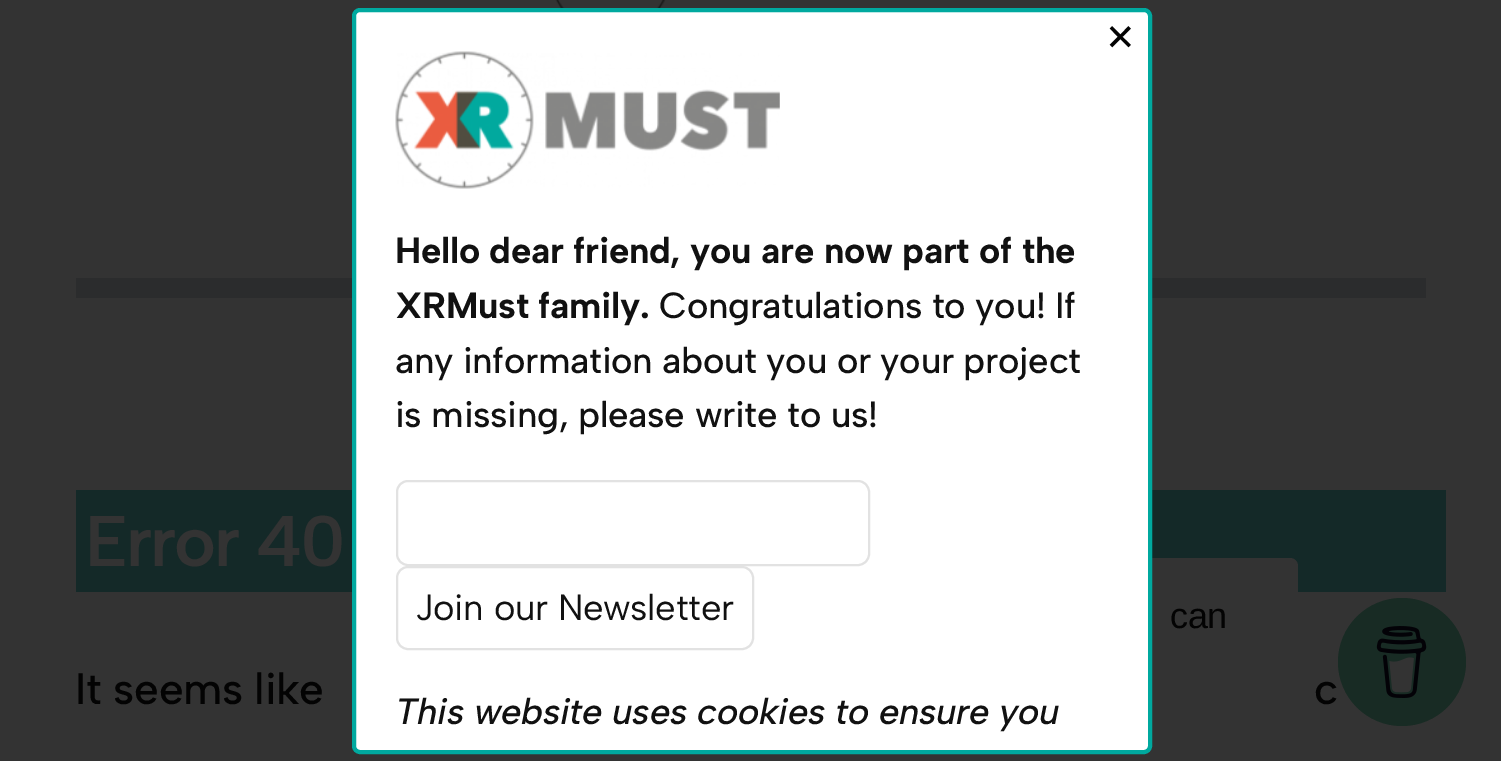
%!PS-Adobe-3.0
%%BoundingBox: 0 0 1501 761
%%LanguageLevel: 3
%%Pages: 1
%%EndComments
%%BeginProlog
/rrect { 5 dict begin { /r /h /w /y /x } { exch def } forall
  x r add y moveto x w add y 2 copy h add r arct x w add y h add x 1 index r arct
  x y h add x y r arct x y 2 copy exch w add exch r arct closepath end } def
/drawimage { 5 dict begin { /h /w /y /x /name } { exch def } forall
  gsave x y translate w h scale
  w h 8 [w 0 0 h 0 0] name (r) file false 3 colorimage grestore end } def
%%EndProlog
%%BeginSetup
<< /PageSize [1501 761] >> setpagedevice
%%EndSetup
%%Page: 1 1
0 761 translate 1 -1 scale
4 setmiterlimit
0.2 setgray
0 0 1501 761 rectfill
0.169 0.173 0.176 setrgbcolor
76 278 1350 20 rectfill
0.078 0.161 0.157 setrgbcolor
76 490 1370 102 rectfill
0.2 setgray
714 558 584 172 8 rrect fill
1 setgray
354 10 796 742 6 rrect gsave fill grestore
0 0.663 0.624 setrgbcolor
4 setlinewidth
stroke
(images/1.raw) 395 51 385 138 drawimage
0.886 setgray
2 setlinewidth
397 481 472 84 11 rrect stroke
397 567 356 82 11 rrect stroke
(images/2.raw) 555 0 111 8 drawimage
0.094 0.169 0.141 setrgbcolor
newpath 1402 662 64 0 360 arc closepath fill
(images/3.raw) 1376 626 51 72 drawimage
/DejaVuSans-Regular [36.5 0 0 -36.5 0 0] selectfont
0.012 setgray
1105 50 moveto -0.35 0 (✕) ashow
/AlbertSans-Bold [36.5 0 0 -36.5 0 0] selectfont
0.067 setgray
395 263 moveto -0.35 0 (Hello dear friend, you are now part of the) ashow
395 318 moveto -0.35 0 (XRMust family.) ashow
/AlbertSans-Medium [36.5 0 0 -36.5 0 0] selectfont
659 318 moveto -0.35 0 (Congratulations to you! If) ashow
395 373 moveto -0.35 0 (any information about you or your project) ashow
395 427 moveto -0.35 0 (is missing, please write to us!) ashow
/AlbertSans-Regular [36.5 0 0 -36.5 0 0] selectfont
415 620 moveto -0.35 0 (Join our Newsletter) ashow
/AlbertSans-MediumItalic [36.5 0 0 -36.5 0 0] selectfont
395 724 moveto -0.35 0 (This website uses cookies to ensure you) ashow
/AlbertSans-SemiBold [71.5 0 0 -71.5 0 0] selectfont
0.2 setgray
85 566 moveto -2.25 0 (Error 40) ashow
/AlbertSans-Medium [44 0 0 -44 0 0] selectfont
0.012 setgray
75 704 moveto -0.35 0 (It seems like) ashow
1314 704 moveto -0.35 0 (c) ashow
/LiberationSans-Regular [36 0 0 -36 0 0] selectfont
1170 628 moveto -0.35 0 (can) ashow
showpage
%%EOF
